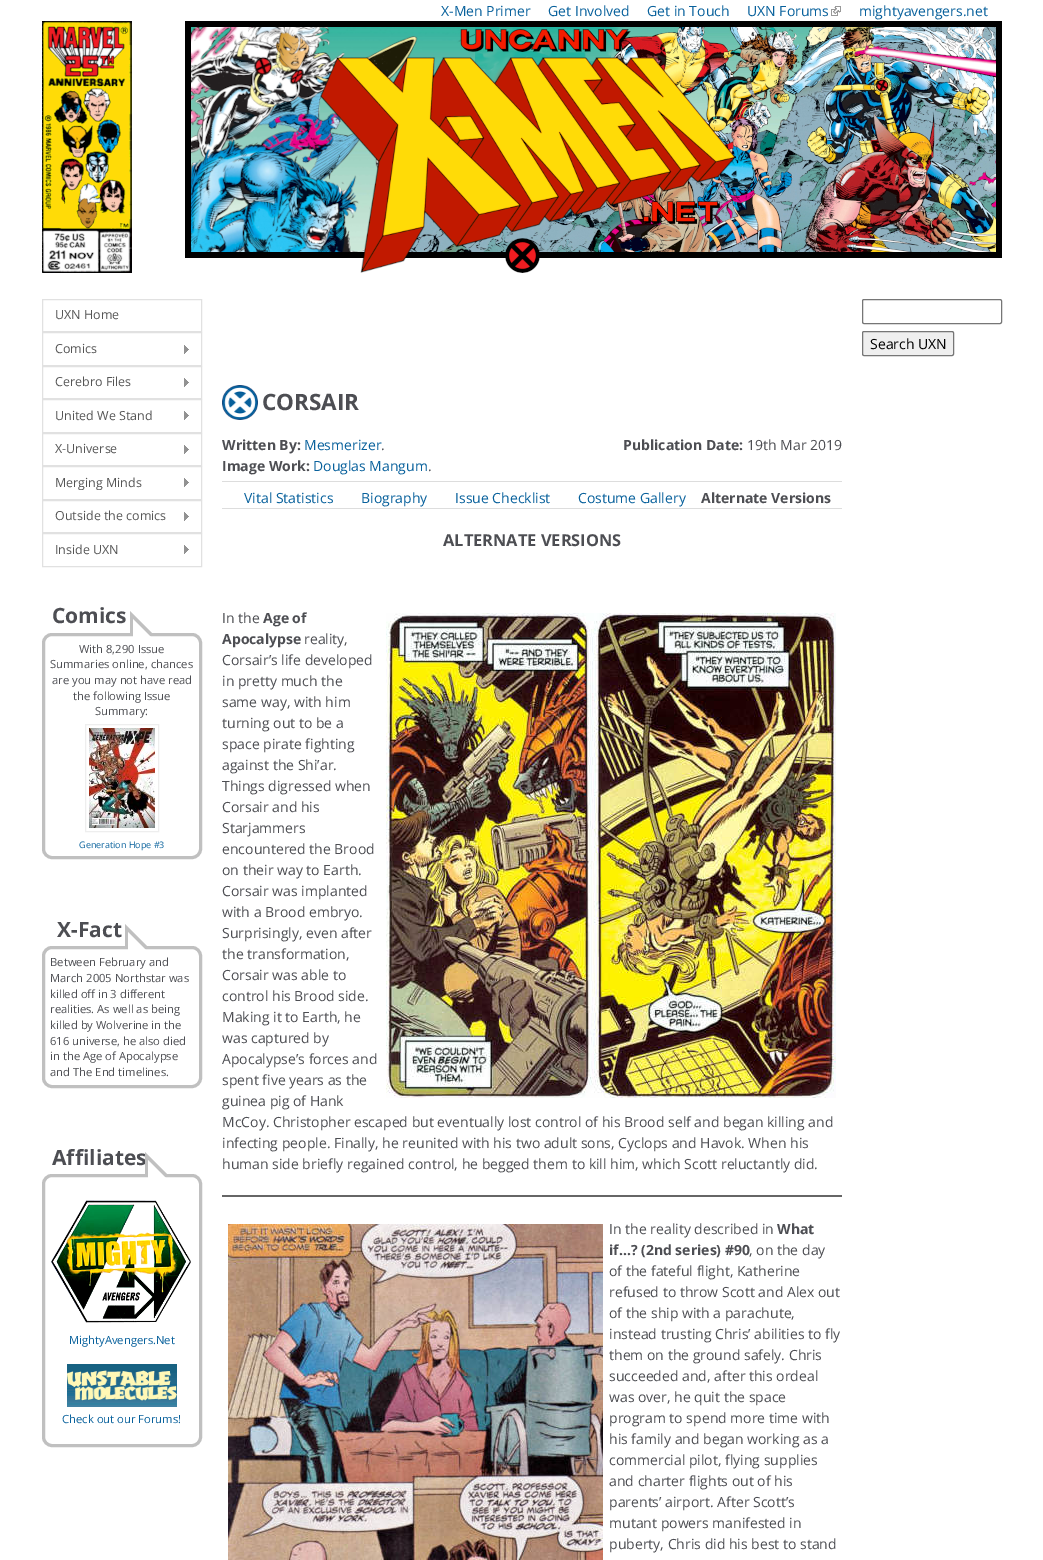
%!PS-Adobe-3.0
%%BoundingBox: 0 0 1043 1560
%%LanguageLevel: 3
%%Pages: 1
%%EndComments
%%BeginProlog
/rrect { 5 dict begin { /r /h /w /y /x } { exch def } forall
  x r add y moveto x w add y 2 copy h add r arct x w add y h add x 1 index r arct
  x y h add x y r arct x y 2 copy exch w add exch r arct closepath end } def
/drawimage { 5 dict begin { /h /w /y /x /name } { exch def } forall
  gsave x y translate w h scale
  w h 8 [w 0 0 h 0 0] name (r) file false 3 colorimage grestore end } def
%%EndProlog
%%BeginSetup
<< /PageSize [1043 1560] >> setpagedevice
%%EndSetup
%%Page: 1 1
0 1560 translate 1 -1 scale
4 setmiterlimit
1 setgray
0 0 1043 1560 rectfill
(images/1.raw) 831 6 10 10 drawimage
(images/2.raw) 42 21 960 252 drawimage
0.882 setgray
42.5 299.5 159 32 rectstroke
42.5 332.5 159 33 rectstroke
(images/3.raw) 184 345 5 9 drawimage
42.5 366.5 159 32 rectstroke
(images/3.raw) 184 378 5 9 drawimage
42.5 399.5 159 33 rectstroke
(images/3.raw) 184 411 5 9 drawimage
42.5 433.5 159 32 rectstroke
(images/3.raw) 184 445 5 9 drawimage
42.5 466.5 159 33 rectstroke
(images/3.raw) 184 478 5 9 drawimage
42.5 500.5 159 32 rectstroke
(images/3.raw) 184 512 5 9 drawimage
42.5 533.5 159 33 rectstroke
(images/3.raw) 184 545 5 9 drawimage
0.753 setgray
3 setlinewidth
43.5 634.5 157 223 8.5 rrect stroke
newpath 130 636 moveto 130 611 lineto 155 636 lineto closepath fill
1 setgray
newpath 133 639 moveto 133 619 lineto 153 639 lineto closepath fill
0.933 setgray
1 setlinewidth
85.5 724.5 73 107 rectstroke
(images/4.raw) 89 728 66 100 drawimage
0.753 setgray
3 setlinewidth
43.5 947.5 157 139 8.5 rrect stroke
newpath 125 949 moveto 125 924 lineto 150 949 lineto closepath fill
1 setgray
newpath 128 952 moveto 128 932 lineto 148 952 lineto closepath fill
0.753 setgray
43.5 1175.5 157 270 8.5 rrect stroke
(images/5.raw) 51 1200 140 123 drawimage
(images/6.raw) 67 1364 110 43 drawimage
0.463 setgray
1 setlinewidth
862.5 299.5 139 24 1.5 rrect stroke
0.937 setgray
862.5 331.5 91 24 1.5 rrect gsave fill grestore
0.463 setgray
stroke
(images/7.raw) 222 385 36 35 drawimage
0.867 setgray
222 508 620 1 rectfill
222 481 620 1 rectfill
(images/8.raw) 386 613 450 485 drawimage
0.4 setgray
222 1195 620 2 rectfill
(images/9.raw) 228 1224 375 336 drawimage
/OpenSans-Regular [14 0 0 -14 0 0] selectfont
0.031 0.38 0.612 setrgbcolor
441 16 moveto (X-Men Primer) show
548 16 moveto (Get Involved) show
647 16 moveto (Get in Touch) show
747 16 moveto (UXN Forums) show
859 16 moveto (mightyavengers.net) show
/OpenSans-Regular [12.5 0 0 -12.5 0 0] selectfont
0.333 setgray
55 319 moveto (UXN Home) show
55 353 moveto (Comics) show
55 386 moveto (Cerebro Files) show
55 420 moveto (United We Stand) show
55 453 moveto (X-Universe) show
55 487 moveto (Merging Minds) show
55 520 moveto (Outside the comics) show
55 554 moveto (Inside UXN) show
/OpenSans-Bold [21 0 0 -21 0 0] selectfont
0.302 0.306 0.325 setrgbcolor
52 623 moveto (Comics) show
/OpenSans-Regular [11.25 0 0 -11.25 0 0] selectfont
79 653 moveto (With 8,290 Issue) show
50 668 moveto (Summaries online, chances) show
52 684 moveto (are you may not have read) show
73 700 moveto (the following Issue) show
95 715 moveto (Summary:) show
/OpenSans-Regular [9 0 0 -9 0 0] selectfont
0.031 0.38 0.612 setrgbcolor
79 848 moveto (Generation Hope #3) show
/OpenSans-Bold [21 0 0 -21 0 0] selectfont
0.302 0.306 0.325 setrgbcolor
57 937 moveto (X-Fact) show
/OpenSans-Regular [11.25 0 0 -11.25 0 0] selectfont
50 966 moveto (Between February and) show
50 982 moveto (March 2005 Northstar was) show
50 998 moveto (killed off in 3 different) show
50 1013 moveto (realities. As well as being) show
50 1029 moveto (killed by Wolverine in the) show
50 1045 moveto (616 universe, he also died) show
50 1060 moveto (in the Age of Apocalypse) show
50 1076 moveto (and The End timelines.) show
/OpenSans-Bold [21 0 0 -21 0 0] selectfont
52 1165 moveto (Affiliates) show
0.753 setgray
newpath 145 1177 moveto 145 1152 lineto 170 1177 lineto closepath fill
1 setgray
newpath 148 1180 moveto 148 1160 lineto 168 1180 lineto closepath fill
/OpenSans-Regular [11.25 0 0 -11.25 0 0] selectfont
0.031 0.38 0.612 setrgbcolor
69 1344 moveto (MightyAvengers.Net) show
62 1423 moveto (Check out our Forums!) show
/OpenSans-Regular [14 0 0 -14 0 0] selectfont
0 setgray
870 349 moveto (Search UXN) show
/OpenSans-Bold [22.5 0 0 -22.5 0 0] selectfont
0.302 0.306 0.325 setrgbcolor
262 410 moveto (CORSAIR) show
/OpenSans-Bold [14 0 0 -14 0 0] selectfont
222 450 moveto (Written By:) show
/OpenSans-Regular [14 0 0 -14 0 0] selectfont
0.031 0.38 0.612 setrgbcolor
304 450 moveto (Mesmerizer) show
0.302 0.306 0.325 setrgbcolor
381 450 moveto (.) show
/OpenSans-Bold [14 0 0 -14 0 0] selectfont
623 450 moveto (Publication Date:) show
/OpenSans-Regular [14 0 0 -14 0 0] selectfont
747 450 moveto (19th Mar 2019) show
/OpenSans-Bold [14 0 0 -14 0 0] selectfont
222 471 moveto (Image Work:) show
/OpenSans-Regular [14 0 0 -14 0 0] selectfont
0.031 0.38 0.612 setrgbcolor
313 471 moveto (Douglas Mangum) show
0.302 0.306 0.325 setrgbcolor
428 471 moveto (.) show
0.031 0.38 0.612 setrgbcolor
244 503 moveto (Vital Statistics) show
361 503 moveto (Biography) show
455 503 moveto (Issue Checklist) show
578 503 moveto (Costume Gallery) show
/OpenSans-Bold [14 0 0 -14 0 0] selectfont
0.302 0.306 0.325 setrgbcolor
701 503 moveto (Alternate Versions) show
/OpenSans-Bold [16.4 0 0 -16.4 0 0] selectfont
443 546 moveto (ALTERNATE VERSIONS) show
/OpenSans-Regular [14 0 0 -14 0 0] selectfont
222 623 moveto (In the) show
/OpenSans-Bold [14 0 0 -14 0 0] selectfont
263 623 moveto (Age of) show
222 644 moveto (Apocalypse) show
/OpenSans-Regular [14 0 0 -14 0 0] selectfont
304 644 moveto (reality,) show
222 665 moveto (Corsair’s life developed) show
222 686 moveto (in pretty much the) show
222 707 moveto (same way, with him) show
222 728 moveto (turning out to be a) show
222 749 moveto (space pirate fighting) show
222 770 moveto (against the Shi’ar.) show
222 791 moveto (Things digressed when) show
222 812 moveto (Corsair and his) show
222 833 moveto (Starjammers) show
222 854 moveto (encountered the Brood) show
222 875 moveto (on their way to Earth.) show
222 896 moveto (Corsair was implanted) show
222 917 moveto (with a Brood embryo.) show
222 938 moveto (Surprisingly, even after) show
222 959 moveto (the transformation,) show
222 980 moveto (Corsair was able to) show
222 1001 moveto (control his Brood side.) show
222 1022 moveto (Making it to Earth, he) show
222 1043 moveto (was captured by) show
222 1064 moveto (Apocalypse’s forces and) show
222 1085 moveto (spent five years as the) show
222 1106 moveto (guinea pig of Hank) show
222 1127 moveto (McCoy. Christopher escaped but eventually lost control of his Brood self and began killing and) show
222 1148 moveto (infecting people. Finally, he reunited with his two adult sons, Cyclops and Havok. When his) show
222 1169 moveto (human side briefly regained control, he begged them to kill him, which Scott reluctantly did.) show
609 1234 moveto (In the reality described in) show
/OpenSans-Bold [14 0 0 -14 0 0] selectfont
777 1234 moveto (What) show
609 1255 moveto (if…? \(2nd series\) #90) show
/OpenSans-Regular [14 0 0 -14 0 0] selectfont
749 1255 moveto (, on the day) show
609 1276 moveto (of the fateful flight, Katherine) show
609 1297 moveto (refused to throw Scott and Alex out) show
609 1318 moveto (of the ship with a parachute,) show
609 1339 moveto (instead trusting Chris’ abilities to fly) show
609 1360 moveto (them on the ground safely. Chris) show
609 1381 moveto (succeeded and, after this ordeal) show
609 1402 moveto (was over, he quit the space) show
609 1423 moveto (program to spend more time with) show
609 1444 moveto (his family and began working as a) show
609 1465 moveto (commercial pilot, flying supplies) show
609 1486 moveto (and charter flights out of his) show
609 1507 moveto (parents’ airport. After Scott’s) show
609 1528 moveto (mutant powers manifested in) show
609 1549 moveto (puberty, Chris did his best to stand) show
showpage
%%EOF
